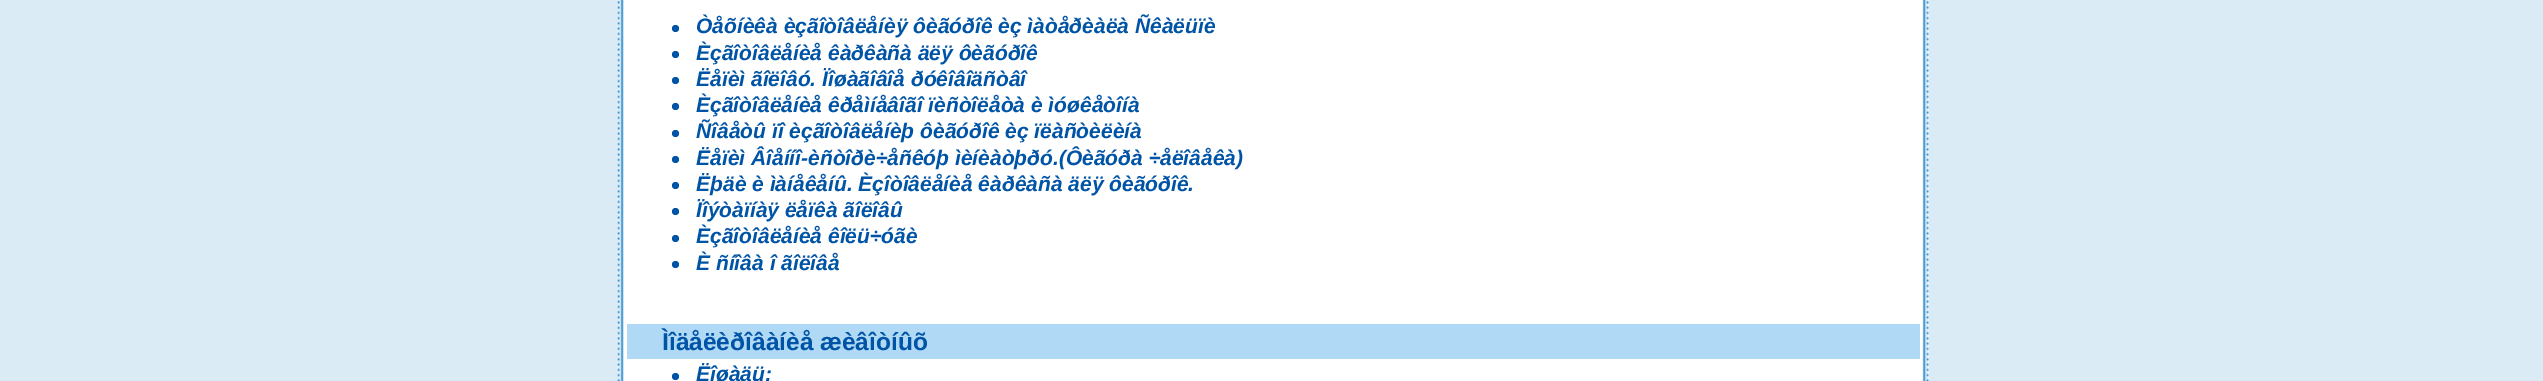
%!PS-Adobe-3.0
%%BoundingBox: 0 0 2543 381
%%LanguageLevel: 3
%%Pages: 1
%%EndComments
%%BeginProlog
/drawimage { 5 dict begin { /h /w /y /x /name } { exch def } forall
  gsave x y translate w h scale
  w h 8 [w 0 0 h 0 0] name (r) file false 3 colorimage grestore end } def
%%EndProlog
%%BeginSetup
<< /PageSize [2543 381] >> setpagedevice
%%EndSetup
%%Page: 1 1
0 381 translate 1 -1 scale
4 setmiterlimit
0.859 0.922 0.965 setrgbcolor
0 0 2543 381 rectfill
1 setgray
624 0 1305 381 rectfill
(images/1.raw) 617 0 7 381 drawimage
(images/2.raw) 1922 0 7 381 drawimage
0 0.329 0.651 setrgbcolor
newpath 675.5 28.5 3.5 0 360 arc closepath fill
newpath 675.5 54.5 3.5 0 360 arc closepath fill
newpath 675.5 80.5 3.5 0 360 arc closepath fill
newpath 675.5 106.5 3.5 0 360 arc closepath fill
newpath 675.5 133.5 3.5 0 360 arc closepath fill
newpath 675.5 159.5 3.5 0 360 arc closepath fill
newpath 675.5 185.5 3.5 0 360 arc closepath fill
newpath 675.5 211.5 3.5 0 360 arc closepath fill
newpath 675.5 238.5 3.5 0 360 arc closepath fill
newpath 675.5 264.5 3.5 0 360 arc closepath fill
0.69 0.851 0.965 setrgbcolor
627 324 1293 35 rectfill
0 0.329 0.651 setrgbcolor
newpath 675.5 376.5 3.5 0 360 arc closepath fill
/LiberationSans-BoldItalic [21 0 0 -21 0 0] selectfont
696 33 moveto (Òåõíèêà èçãîòîâëåíèÿ ôèãóðîê èç ìàòåðèàëà Ñêàëüïè) show
696 60 moveto (Èçãîòîâëåíèå êàðêàñà äëÿ ôèãóðîê) show
696 86 moveto (Ëåïèì ãîëîâó. Ïîøàãîâîå ðóêîâîäñòâî) show
696 112 moveto (Èçãîòîâëåíèå êðåìíåâîãî ïèñòîëåòà è ìóøêåòîíà) show
696 138 moveto (Ñîâåòû ïî èçãîòîâëåíèþ ôèãóðîê èç ïëàñòèëèíà) show
696 165 moveto (Ëåïèì Âîåííî-èñòîðè÷åñêóþ ìèíèàòþðó.\(Ôèãóðà ÷åëîâåêà\)) show
696 191 moveto (Ëþäè è ìàíåêåíû. Èçîòîâëåíèå êàðêàñà äëÿ ôèãóðîê.) show
696 217 moveto (Ïîýòàïíàÿ ëåïêà ãîëîâû) show
696 243 moveto (Èçãîòîâëåíèå êîëü÷óãè) show
696 270 moveto (È ñíîâà î ãîëîâå) show
/LiberationSans-Bold [24.5 0 0 -24.5 0 0] selectfont
662 350 moveto (Ìîäåëèðîâàíèå æèâîòíûõ) show
/LiberationSans-BoldItalic [21 0 0 -21 0 0] selectfont
696 381 moveto (Ëîøàäü:) show
showpage
%%EOF
